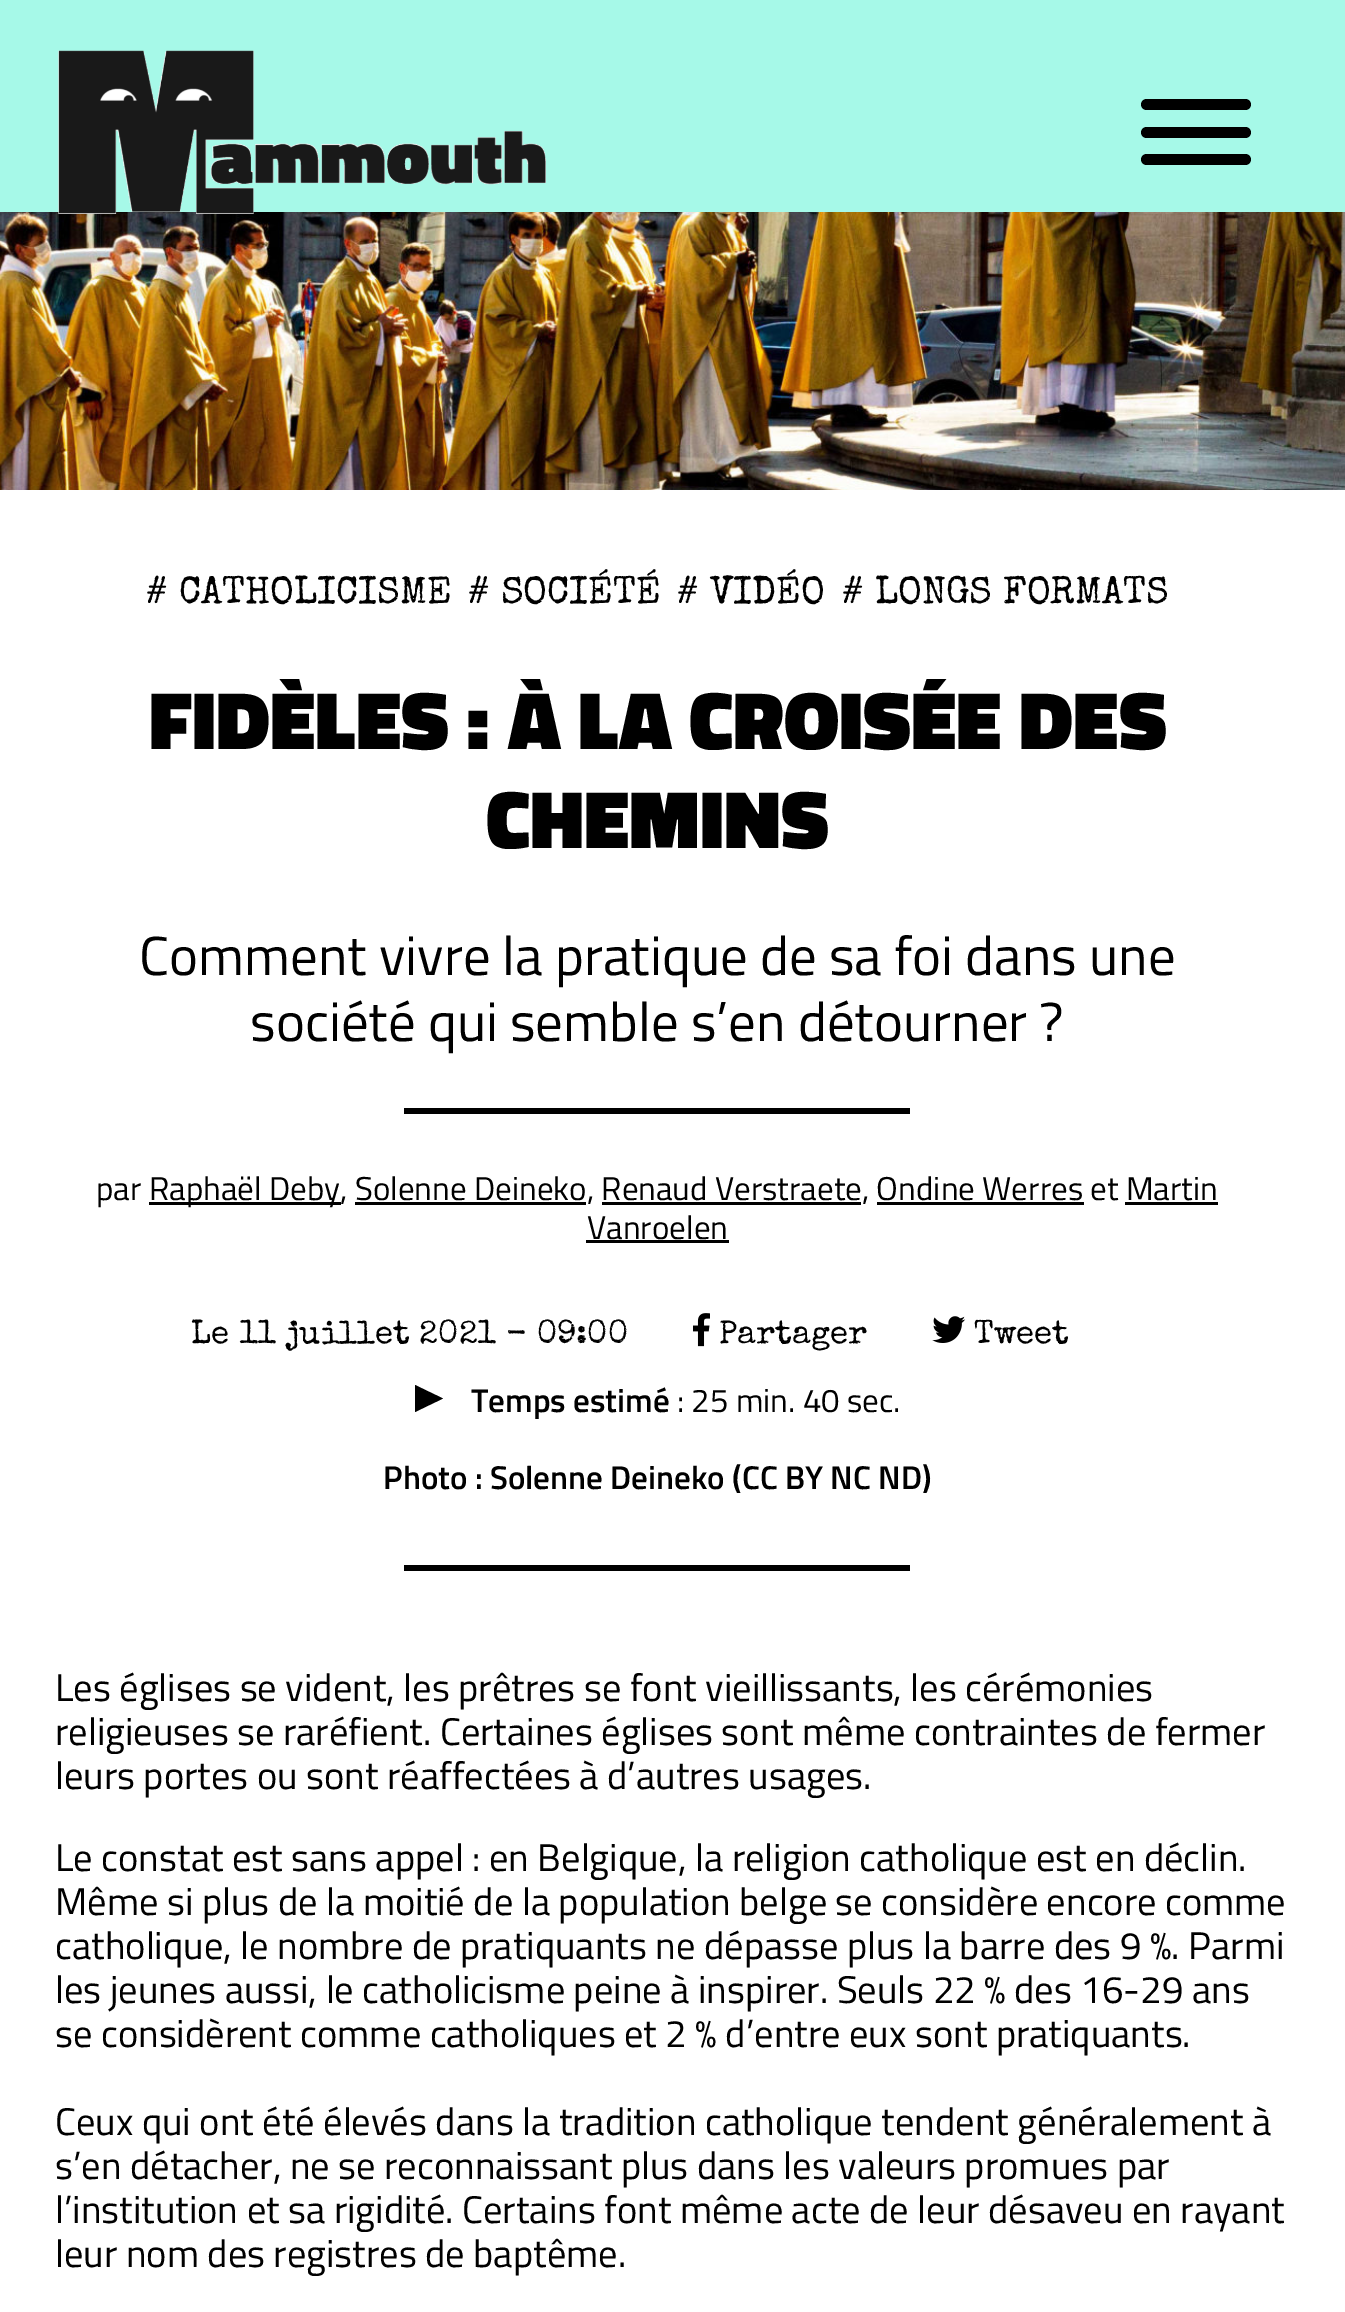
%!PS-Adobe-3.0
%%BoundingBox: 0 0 1345 2312
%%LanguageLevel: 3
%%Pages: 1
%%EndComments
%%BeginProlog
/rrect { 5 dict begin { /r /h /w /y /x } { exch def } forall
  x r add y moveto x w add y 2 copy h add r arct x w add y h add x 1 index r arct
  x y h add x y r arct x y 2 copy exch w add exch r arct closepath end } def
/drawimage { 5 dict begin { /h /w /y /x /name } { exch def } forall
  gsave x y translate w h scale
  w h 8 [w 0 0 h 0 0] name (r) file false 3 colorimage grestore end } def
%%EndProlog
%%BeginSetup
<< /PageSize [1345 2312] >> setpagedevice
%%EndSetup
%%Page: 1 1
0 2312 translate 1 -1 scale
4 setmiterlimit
1 setgray
0 0 1345 2312 rectfill
0.651 0.976 0.91 setrgbcolor
0 0 1345 212 rectfill
(images/2.raw) 0 212 1345 278 drawimage
(images/1.raw) 58 50 488 164 drawimage
0 setgray
1141 127 110 11 5.5 rrect fill
1141 99 110 11 5.5 rrect fill
1141 154 110 11 5.5 rrect fill
404 1108 506 6 rectfill
149 1202 192 3 rectfill
355 1202 231 3 rectfill
602 1202 259 3 rectfill
877 1202 207 3 rectfill
1125 1202 93 3 rectfill
586 1240 143 3 rectfill
(images/3.raw) 693 1313 17 34 drawimage
(images/4.raw) 932 1316 34 27 drawimage
newpath 415 1385 moveto 415 1412 lineto 443 1398.5 lineto closepath fill
404 1565 506 6 rectfill
/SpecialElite-Regular [38.5 0 0 -38.5 0 0] selectfont
146 603 moveto (# CATHOLICISME) show
468 603 moveto (# SOCIÉTÉ) show
677 603 moveto (# VIDÉO) show
842 603 moveto (# LONGS FORMATS) show
/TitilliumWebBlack-Black [82.5 0 0 -82.5 0 0] selectfont
149 749 moveto (FIDÈLES : À LA CROISÉE DES) show
486 848 moveto (CHEMINS) show
/TitilliumWeb-Regular [55 0 0 -55 0 0] selectfont
139 975 moveto (Comment vivre la pratique de sa foi dans une) show
250 1041 moveto (société qui semble s’en détourner ?) show
/TitilliumWeb-Regular [33 0 0 -33 0 0] selectfont
96 1200 moveto (par) show
149 1200 moveto (Raphaël Deby, Solenne Deineko, Renaud Verstraete, Ondine Werres et Martin) show
587 1239 moveto (Vanroelen) show
/SpecialElite-Regular [33 0 0 -33 0 0] selectfont
191 1343 moveto (Le 11 juillet 2021 - 09:00) show
719 1343 moveto (Partager) show
974 1343 moveto (Tweet) show
/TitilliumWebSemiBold-SemiBold [33 0 0 -33 0 0] selectfont
471 1412 moveto (Temps estimé) show
/TitilliumWeb-Regular [33 0 0 -33 0 0] selectfont
677 1412 moveto (: 25 min. 40 sec.) show
/TitilliumWebSemiBold-SemiBold [33 0 0 -33 0 0] selectfont
383 1489 moveto (Photo : Solenne Deineko \(CC BY NC ND\)) show
/TitilliumWeb-Regular [38.5 0 0 -38.5 0 0] selectfont
55 1701 moveto (Les églises se vident, les prêtres se font vieillissants, les cérémonies) show
55 1745 moveto (religieuses se raréfient. Certaines églises sont même contraintes de fermer) show
55 1789 moveto (leurs portes ou sont réaffectées à d’autres usages.) show
55 1871 moveto (Le constat est sans appel : en Belgique, la religion catholique est en déclin.) show
55 1915 moveto (Même si plus de la moitié de la population belge se considère encore comme) show
55 1959 moveto (catholique, le nombre de pratiquants ne dépasse plus la barre des 9 %. Parmi) show
55 2003 moveto (les jeunes aussi, le catholicisme peine à inspirer. Seuls 22 % des 16-29 ans) show
55 2047 moveto (se considèrent comme catholiques et 2 % d’entre eux sont pratiquants.) show
55 2135 moveto (Ceux qui ont été élevés dans la tradition catholique tendent généralement à) show
55 2179 moveto (s’en détacher, ne se reconnaissant plus dans les valeurs promues par) show
55 2223 moveto (l’institution et sa rigidité. Certains font même acte de leur désaveu en rayant) show
55 2267 moveto (leur nom des registres de baptême.) show
showpage
%%EOF
